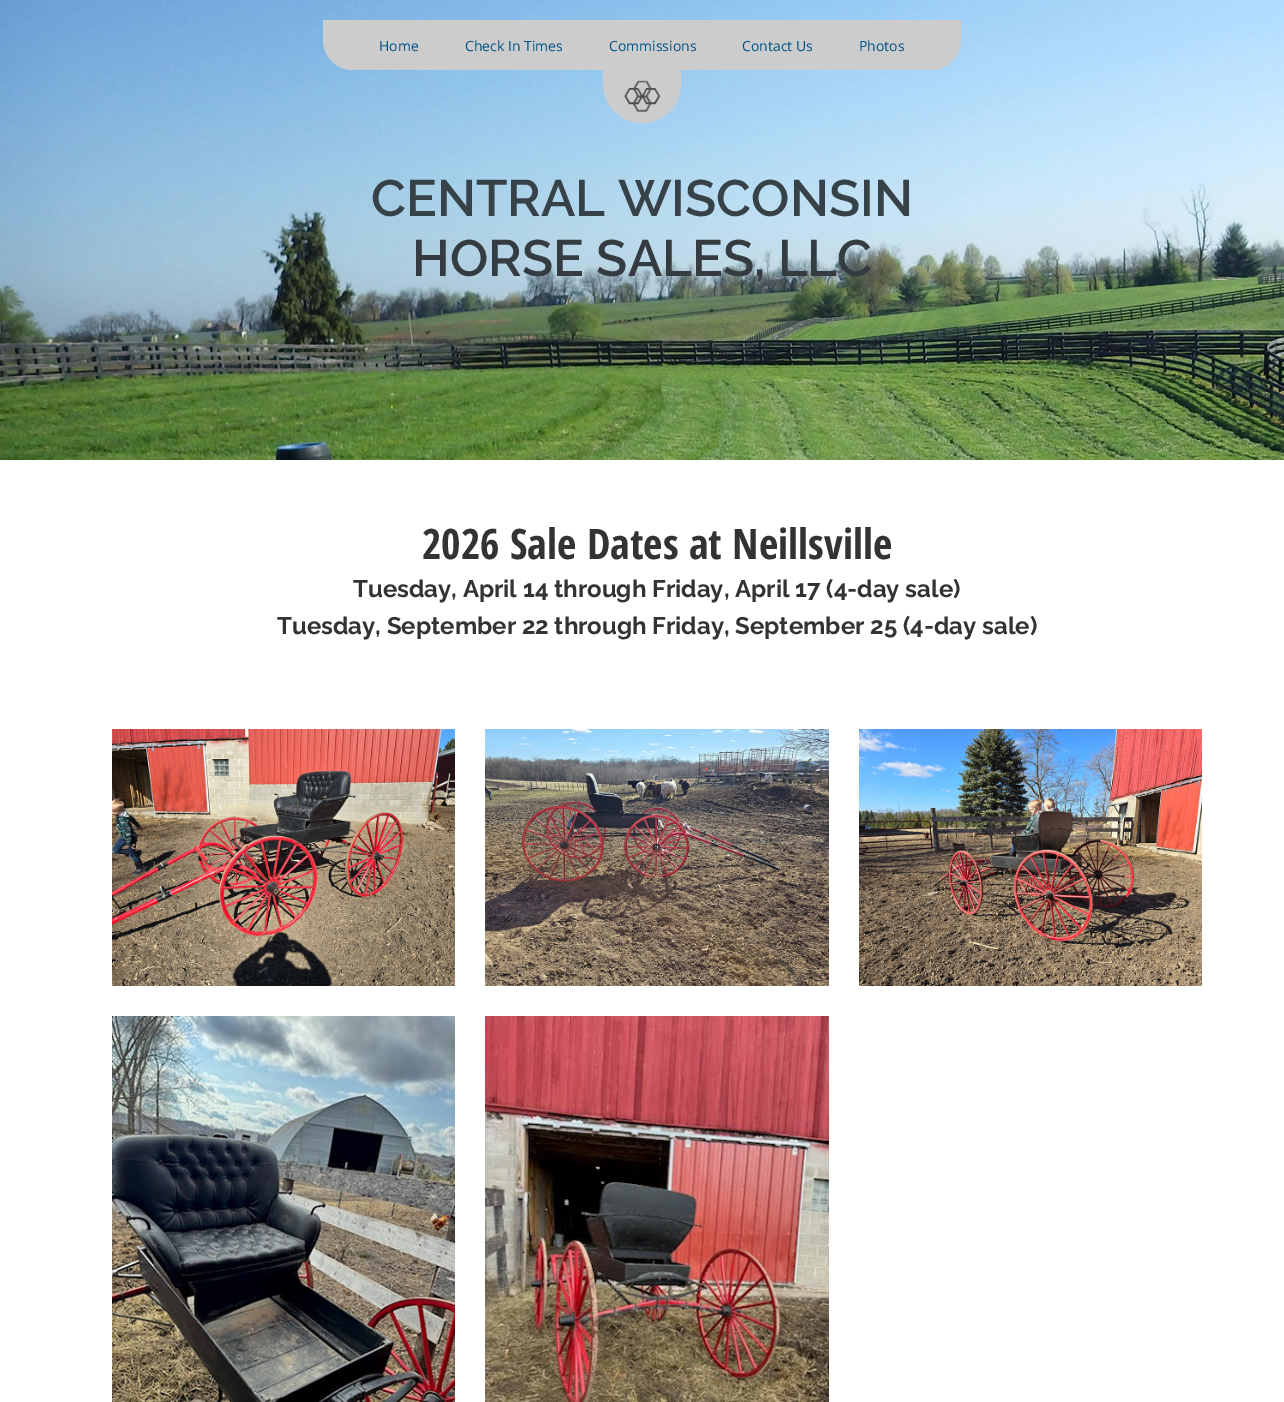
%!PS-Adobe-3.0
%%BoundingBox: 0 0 1284 1402
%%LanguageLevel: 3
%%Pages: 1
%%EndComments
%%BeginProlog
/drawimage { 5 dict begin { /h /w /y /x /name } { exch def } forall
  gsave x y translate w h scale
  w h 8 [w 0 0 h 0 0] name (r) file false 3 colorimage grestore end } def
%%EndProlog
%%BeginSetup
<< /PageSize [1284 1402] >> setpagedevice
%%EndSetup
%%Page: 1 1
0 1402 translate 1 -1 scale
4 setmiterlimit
1 setgray
0 0 1284 1402 rectfill
(images/1.raw) 0 0 1284 460 drawimage
0.8 setgray
newpath 323 20 moveto 961 20 lineto 961 40 lineto 961 56.5 947.5 70 931 70 curveto 353 70 lineto 336.5 70 323 56.5 323 40 curveto closepath fill
newpath 603 70 moveto 681 70 lineto 681 84 lineto 681 105.5 663.5 123 642 123 curveto 620.5 123 603 105.5 603 84 curveto closepath fill
(images/2.raw) 624 80 37 32 drawimage
(images/3.raw) 112 729 343 257 drawimage
(images/4.raw) 485 729 344 257 drawimage
(images/5.raw) 859 729 343 257 drawimage
(images/6.raw) 112 1016 343 386 drawimage
(images/7.raw) 485 1016 344 386 drawimage
/OpenSans-Regular [14 0 0 -14 0 0] selectfont
0 0.325 0.518 setrgbcolor
379 51 moveto (Home) show
465 51 moveto (Check In Times) show
609 51 moveto (Commissions) show
742 51 moveto (Contact Us) show
859 51 moveto (Photos) show
/Raleway-SemiBold [51 0 0 -51 0 0] selectfont
0.212 0.255 0.282 setrgbcolor
371 216 moveto (CENTRAL WISCONSIN) show
0.204 0.235 0.255 setrgbcolor
412 276 moveto (HORSE SALES, LLC) show
/OpenSansCondensed-Bold [42 0 0 -42 0 0] selectfont
0.2 setgray
422 559 moveto (2026 Sale Dates at Neillsville) show
/Raleway-Bold [24 0 0 -24 0 0] selectfont
353 597 moveto (Tuesday, April 14 through Friday, April 17 \(4-day sale\)) show
277 634 moveto (Tuesday, September 22 through Friday, September 25 \(4-day sale\)) show
showpage
%%EOF
